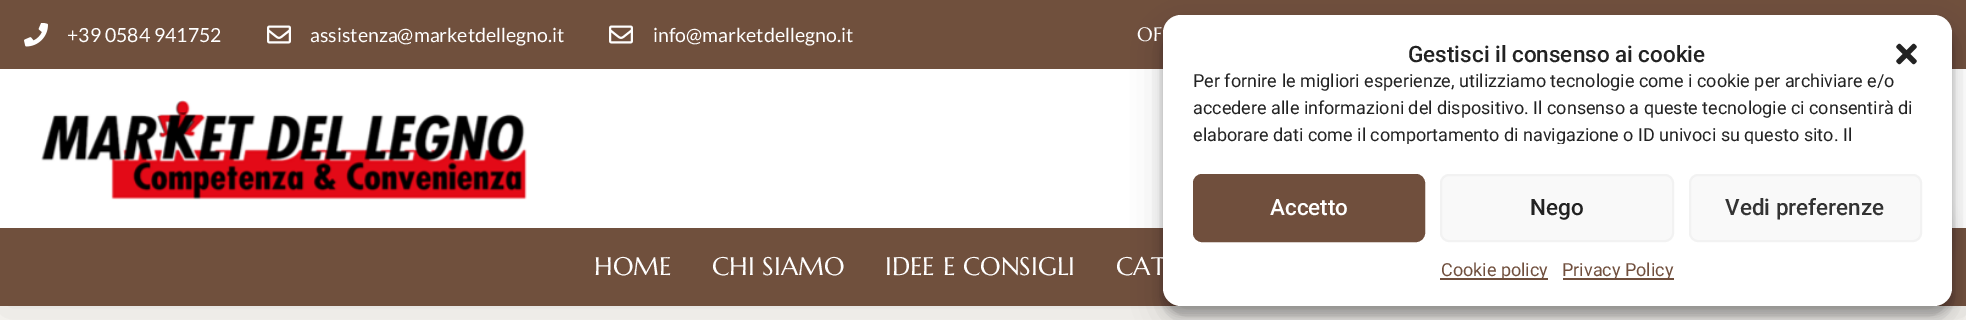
%!PS-Adobe-3.0
%%BoundingBox: 0 0 1966 320
%%LanguageLevel: 3
%%Pages: 1
%%EndComments
%%BeginProlog
/setalpha { dup .setfillconstantalpha .setstrokeconstantalpha } def
/rrect { 5 dict begin { /r /h /w /y /x } { exch def } forall
  x r add y moveto x w add y 2 copy h add r arct x w add y h add x 1 index r arct
  x y h add x y r arct x y 2 copy exch w add exch r arct closepath end } def
/softshadow { 12 dict begin { /a /b /q /h /w /y /x } { exch def } forall gsave /was 0 def
  9 -2 -9 { dup b mul 4 div /e exch def 1 sub .425 mul 2.718 exch exp 1 add a .99 .min exch div /now exch def
    1 1 now sub 1 was sub div sub setalpha /was now def
    w h .min e 2 mul add 0 gt { x e sub y e sub w e 2 mul add h e 2 mul add
      q e add b .6 mul add w h .min 2 div e add .min 0 .max rrect fill } if } for grestore end } def
/drawimage { 5 dict begin { /h /w /y /x /name } { exch def } forall
  gsave x y translate w h scale
  w h 8 [w 0 0 h 0 0] name (r) file false 3 colorimage grestore end } def
%%EndProlog
%%BeginSetup
<< /PageSize [1966 320] /PageUsesTransparency true >> setpagedevice
%%EndSetup
%%Page: 1 1
0 .pushpdf14devicefilter
0 320 translate 1 -1 scale
4 setmiterlimit
0.984 0.976 0.961 setrgbcolor
0 0 1966 320 rectfill
0 setgray
0 8 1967 306 0 22.5 0.1 softshadow
0.439 0.314 0.239 setrgbcolor
0 0 1966 69 rectfill
(images/1.raw) 24 23 24 24 drawimage
(images/2.raw) 267 25 24 19 drawimage
(images/2.raw) 609 25 24 19 drawimage
1 setgray
0 69 1966 159 rectfill
(images/3.raw) 41 100 486 100 drawimage
0.439 0.314 0.239 setrgbcolor
0 228 1966 78 rectfill
0 setgray
1163 24 789 291 18 4.5 0.23 softshadow
1163 30 789 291 18 15 0.19 softshadow
1862 192 90 90 45 6 0.1 softshadow
1 setgray
1163 15 789 291 18 rrect fill
(images/4.raw) 1896 43 21 22 drawimage
0.439 0.31 0.239 setrgbcolor
1194 175 230 66 8 rrect gsave fill grestore
2 setlinewidth
stroke
0.976 setgray
1441 175 232 66 8 rrect gsave fill grestore
0.949 setgray
stroke
0.976 setgray
1690 175 231 66 8 rrect gsave fill grestore
0.949 setgray
stroke
0.439 0.31 0.239 setrgbcolor
1440 278 108 2 rectfill
1563 278 111 2 rectfill
/Lato-Regular [19.5 0 0 -19.5 0 0] selectfont
1 setgray
67 42 moveto (+39 0584 941752) show
310 42 moveto (assistenza@marketdellegno.it) show
653 42 moveto (info@marketdellegno.it) show
/Marcellus-Regular [19.5 0 0 -19.5 0 0] selectfont
1137 41 moveto (OF) show
/Marcellus-Regular [25.5 0 0 -25.5 0 0] selectfont
594 275 moveto (HOME) show
712 275 moveto (CHI SIAMO) show
885 275 moveto (IDEE E CONSIGLI) show
1116 275 moveto (CAT) show
/Roboto-Medium [22.5 0 0 -22.5 0 0] selectfont
0.133 setgray
1408 62 moveto (Gestisci il consenso ai cookie) show
/Roboto-Regular [18 0 0 -18 0 0] selectfont
1193 87 moveto (Per fornire le migliori esperienze, utilizziamo tecnologie come i cookie per archiviare e/o) show
1193 114 moveto (accedere alle informazioni del dispositivo. Il consenso a queste tecnologie ci consentirà di) show
gsave
1193 68 729 76 rectclip
1193 141 moveto (elaborare dati come il comportamento di navigazione o ID univoci su questo sito. Il) show
grestore
/Roboto-Medium [22.5 0 0 -22.5 0 0] selectfont
1 setgray
1270 215 moveto (Accetto) show
0.133 setgray
1530 215 moveto (Nego) show
0.2 setgray
1725 215 moveto (Vedi preferenze) show
/Roboto-Regular [18 0 0 -18 0 0] selectfont
0.439 0.31 0.239 setrgbcolor
1441 276 moveto (Cookie policy) show
1562 276 moveto (Privacy Policy) show
.poppdf14devicefilter showpage
%%EOF
